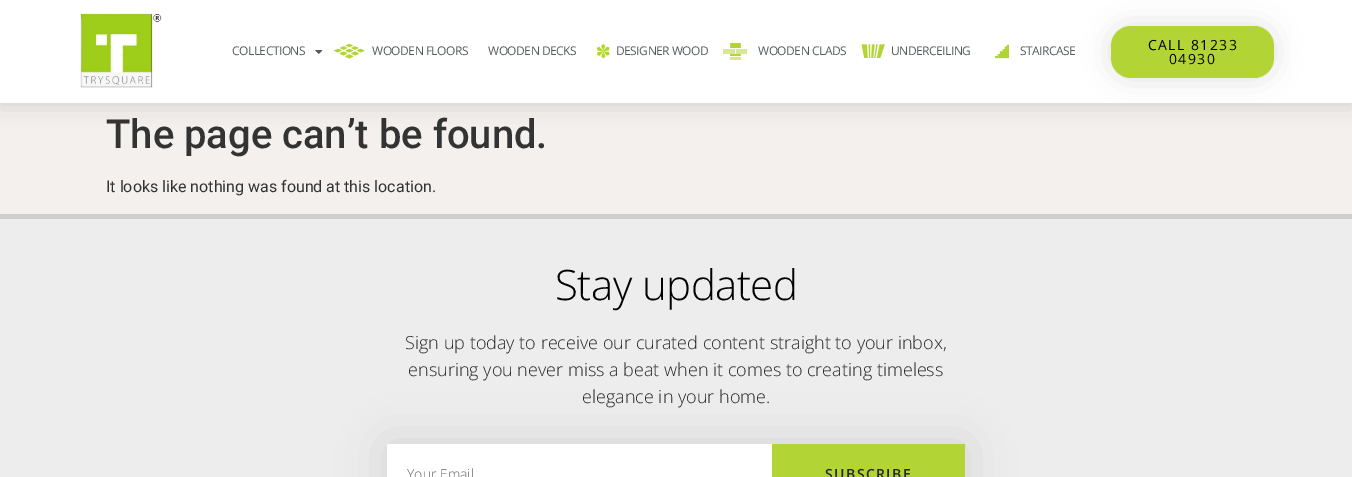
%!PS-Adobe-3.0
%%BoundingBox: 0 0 1352 477
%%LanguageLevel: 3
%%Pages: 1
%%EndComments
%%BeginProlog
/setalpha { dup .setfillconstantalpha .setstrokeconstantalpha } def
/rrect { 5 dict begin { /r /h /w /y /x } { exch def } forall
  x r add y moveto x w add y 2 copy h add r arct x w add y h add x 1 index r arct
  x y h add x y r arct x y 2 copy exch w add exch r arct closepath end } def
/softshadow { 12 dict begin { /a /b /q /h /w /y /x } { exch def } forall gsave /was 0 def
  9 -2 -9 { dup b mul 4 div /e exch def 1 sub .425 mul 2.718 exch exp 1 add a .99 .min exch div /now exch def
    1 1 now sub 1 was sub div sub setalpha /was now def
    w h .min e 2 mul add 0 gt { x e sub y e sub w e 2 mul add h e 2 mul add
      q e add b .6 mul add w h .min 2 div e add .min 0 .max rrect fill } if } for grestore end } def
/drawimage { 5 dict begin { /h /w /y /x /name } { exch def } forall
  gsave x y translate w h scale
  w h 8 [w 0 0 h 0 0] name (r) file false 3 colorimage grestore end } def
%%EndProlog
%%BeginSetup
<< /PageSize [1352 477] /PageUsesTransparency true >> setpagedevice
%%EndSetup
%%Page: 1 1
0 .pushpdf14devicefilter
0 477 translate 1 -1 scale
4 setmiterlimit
0.957 0.941 0.933 setrgbcolor
0 0 1352 477 rectfill
0 setgray
0 0 1352 103 0 12 0.15 softshadow
1 setgray
0 0 1352 103 rectfill
(images/1.raw) 80 13 82 75 drawimage
(images/2.raw) 315 50 8 4 drawimage
(images/3.raw) 333 43 32 16 drawimage
(images/4.raw) 596 44 14 15 drawimage
(images/5.raw) 723 43 24 17 drawimage
(images/6.raw) 861 44 24 15 drawimage
(images/7.raw) 995 44 14 15 drawimage
0 setgray
1111 26 163 52 20 13.5 0.12 softshadow
0.698 0.831 0.208 setrgbcolor
1111 26 163 52 20 rrect fill
0.929 setgray
0 219 1352 258 rectfill
0.808 setgray
0 214 1352 5 rectfill
0 setgray
387 444 578 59 0 24 0.11 softshadow
1 setgray
387 444 385 33 rectfill
0.698 0.831 0.208 setrgbcolor
772 444 193 33 rectfill
/OpenSans-Regular [12 0 0 -12 0 0] selectfont
0.329 0.349 0.373 setrgbcolor
232 55 moveto -0.5 0 (COLLECTIONS) ashow
372 55 moveto -0.5 0 (WOODEN FLOORS) ashow
488 55 moveto -0.5 0 (WOODEN DECKS) ashow
616 55 moveto -0.5 0 (DESIGNER WOOD) ashow
758 55 moveto -0.5 0 (WOODEN CLADS) ashow
891 55 moveto -0.5 0 (UNDERCEILING) ashow
1020 55 moveto -0.5 0 (STAIRCASE) ashow
/OpenSans-Regular [14 0 0 -14 0 0] selectfont
0 setgray
1148 50 moveto 1.4 0 (CALL 81233) ashow
1169 64 moveto 1.4 0 (04930) ashow
/Roboto-Medium [40 0 0 -40 0 0] selectfont
0.2 setgray
106 148 moveto (The page can’t be found.) show
/Roboto-Regular [16 0 0 -16 0 0] selectfont
106 192 moveto (It looks like nothing was found at this location.) show
/OpenSans-Light [42 0 0 -42 0 0] selectfont
0 setgray
555 300 moveto -0.5 0 (Stay updated) ashow
/OpenSans-Light [18 0 0 -18 0 0] selectfont
0.157 setgray
405 349 moveto (Sign up today to receive our curated content straight to your inbox,) show
408 376 moveto (ensuring you never miss a beat when it comes to creating timeless) show
582 403 moveto (elegance in your home.) show
/OpenSans-Light [14 0 0 -14 0 0] selectfont
0.4 setgray
407 479 moveto (Your Email) show
/OpenSans-SemiBold [14 0 0 -14 0 0] selectfont
0.157 setgray
825 479 moveto 1.4 0 (SUBSCRIBE) ashow
.poppdf14devicefilter showpage
%%EOF
